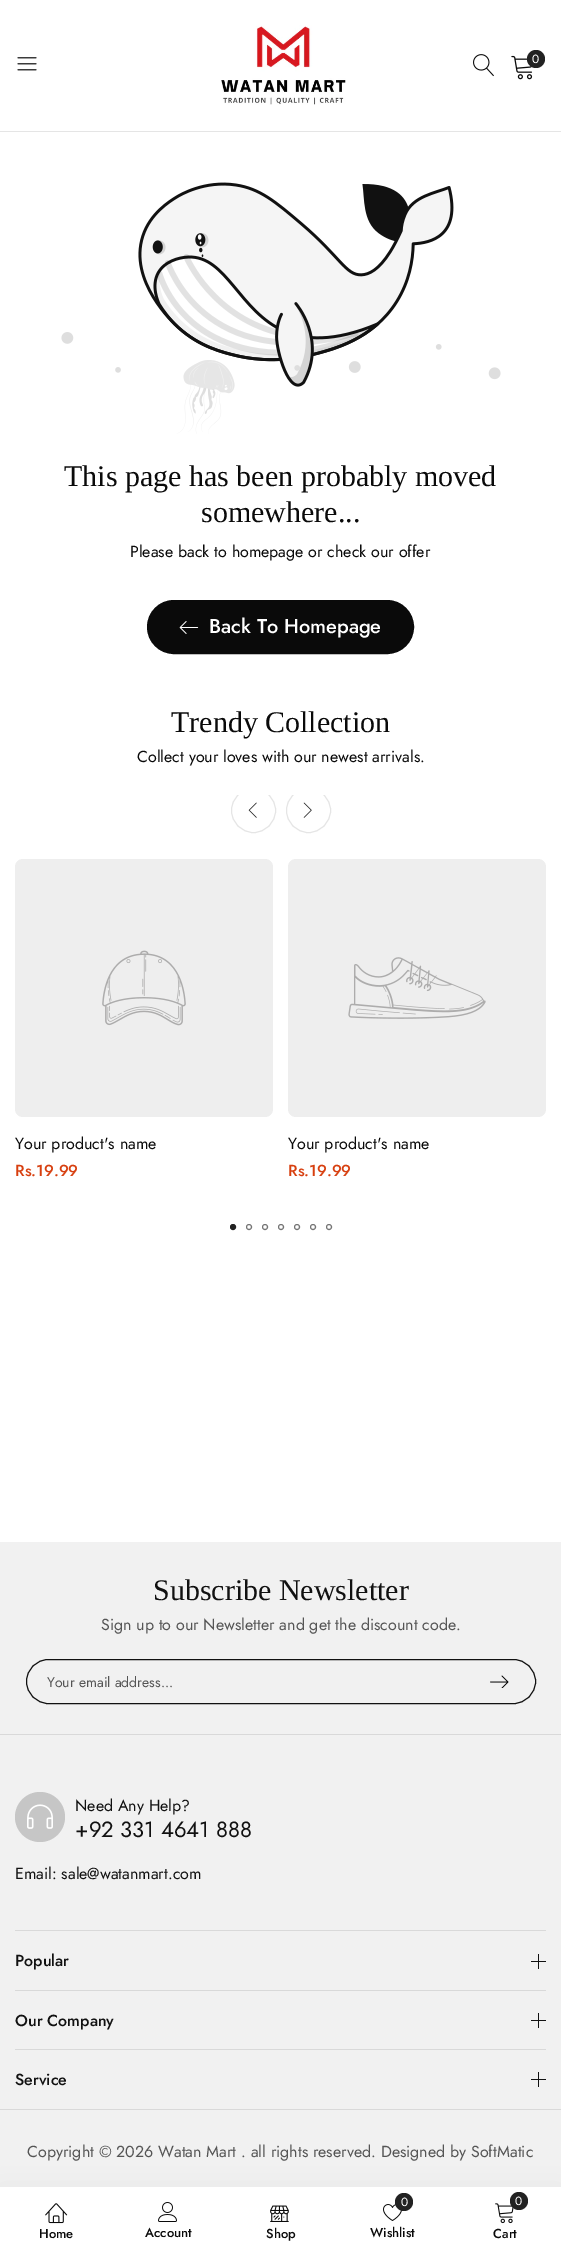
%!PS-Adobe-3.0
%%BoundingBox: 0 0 561 2256
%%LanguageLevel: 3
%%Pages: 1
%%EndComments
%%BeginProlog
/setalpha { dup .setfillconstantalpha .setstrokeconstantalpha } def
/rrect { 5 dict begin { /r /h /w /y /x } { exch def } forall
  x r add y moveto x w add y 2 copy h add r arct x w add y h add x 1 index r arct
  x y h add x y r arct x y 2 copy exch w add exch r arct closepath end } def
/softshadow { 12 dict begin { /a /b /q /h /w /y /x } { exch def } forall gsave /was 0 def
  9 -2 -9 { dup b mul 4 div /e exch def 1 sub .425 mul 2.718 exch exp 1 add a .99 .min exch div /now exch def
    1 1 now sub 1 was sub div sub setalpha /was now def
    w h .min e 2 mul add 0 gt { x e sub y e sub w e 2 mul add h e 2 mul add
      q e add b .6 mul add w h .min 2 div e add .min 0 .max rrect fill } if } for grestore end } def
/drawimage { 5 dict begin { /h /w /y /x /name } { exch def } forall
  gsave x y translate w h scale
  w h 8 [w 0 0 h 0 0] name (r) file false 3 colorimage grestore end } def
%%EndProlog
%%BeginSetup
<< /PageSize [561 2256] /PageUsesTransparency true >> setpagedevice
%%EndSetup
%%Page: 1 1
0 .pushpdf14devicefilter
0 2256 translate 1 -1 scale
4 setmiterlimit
1 setgray
0 0 561 2256 rectfill
0.898 setgray
0 131 561 1 rectfill
(images/1.raw) 17 57 20 14 drawimage
(images/2.raw) 221 25 125 80 drawimage
(images/3.raw) 473 54 21 23 drawimage
(images/4.raw) 511 55 22 25 drawimage
0.133 setgray
newpath 536 59 9 0 360 arc closepath fill
(images/5.raw) 61 182 440 252 drawimage
0.039 setgray
148 601 265 52 26 rrect gsave fill grestore
2 setlinewidth
stroke
(images/6.raw) 179 621 20 13 drawimage
gsave
15 795 531 442 rectclip
0.898 setgray
1 setlinewidth
newpath 253.5 810.5 22 0 360 arc closepath stroke
grestore
(images/7.raw) 248 802 9 16 drawimage
gsave
15 795 531 442 rectclip
0.898 setgray
1 setlinewidth
newpath 308.5 810.5 22 0 360 arc closepath stroke
grestore
(images/8.raw) 303 802 9 16 drawimage
0.933 setgray
15 859 258 258 8 rrect fill
(images/9.raw) 102 950 84 76 drawimage
288 859 258 258 8 rrect fill
(images/10.raw) 348 957 138 62 drawimage
0.133 setgray
newpath 233 1227 2.5 0 360 arc closepath gsave fill grestore
1 setlinewidth
stroke
0.459 setgray
newpath 249 1227 2.5 0 360 arc closepath stroke
newpath 265 1227 2.5 0 360 arc closepath stroke
newpath 281 1227 2.5 0 360 arc closepath stroke
newpath 297 1227 2.5 0 360 arc closepath stroke
newpath 313 1227 2.5 0 360 arc closepath stroke
newpath 329 1227 2.5 0 360 arc closepath stroke
0.945 setgray
0 1542 561 192 rectfill
0.067 setgray
26.5 1659.5 509 44 22 rrect stroke
(images/11.raw) 490 1675 19 13 drawimage
0.945 setgray
0 1735 561 452 rectfill
0.851 setgray
0 1734 561 1 rectfill
0.776 setgray
newpath 40 1817 25 0 360 arc closepath fill
(images/12.raw) 27 1804 26 25 drawimage
0.851 setgray
15 1930 531 1 rectfill
0.067 setgray
538 1954 1 15 rectfill
531 1961 15 1 rectfill
0.851 setgray
15 1990 531 1 rectfill
0.067 setgray
538 2013 1 15 rectfill
531 2020 15 1 rectfill
0.851 setgray
15 2049 531 1 rectfill
0.067 setgray
538 2072 1 15 rectfill
531 2079 15 1 rectfill
0.851 setgray
0 2109 561 1 rectfill
0 setgray
0 2192 561 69 0 15 0.06 softshadow
1 setgray
0 2187 561 69 rectfill
(images/13.raw) 45 2203 23 21 drawimage
(images/14.raw) 158 2202 19 20 drawimage
(images/15.raw) 270 2205 19 17 drawimage
(images/16.raw) 383 2204 19 17 drawimage
0.133 setgray
newpath 404 2202 9 0 360 arc closepath fill
(images/17.raw) 495 2203 19 21 drawimage
newpath 519 2201 9 0 360 arc closepath fill
/Jost-Regular [12 0 0 -12 0 0] selectfont
1 setgray
532 63 moveto (0) show
/LiberationSerif-Regular [30 0 0 -30 0 0] selectfont
0.039 setgray
64 486 moveto (This page has been probably moved) show
201 522 moveto (somewhere...) show
/Jost-Regular [16 0 0 -16 0 0] selectfont
130 557 moveto (Please back to homepage or check our offer) show
/Jost-Medium [20 0 0 -20 0 0] selectfont
1 setgray
209 633 moveto (Back To Homepage) show
/LiberationSerif-Regular [30 0 0 -30 0 0] selectfont
0.039 setgray
171 732 moveto (Trendy Collection) show
/Jost-Regular [16 0 0 -16 0 0] selectfont
137 762 moveto (Collect your loves with our newest arrivals.) show
15 1149 moveto (Your product's name) show
/Jost-Medium [16 0 0 -16 0 0] selectfont
0.843 0.247 0.059 setrgbcolor
15 1176 moveto (Rs.19.99) show
/Jost-Regular [16 0 0 -16 0 0] selectfont
0.039 setgray
288 1149 moveto (Your product's name) show
/Jost-Medium [16 0 0 -16 0 0] selectfont
0.843 0.247 0.059 setrgbcolor
288 1176 moveto (Rs.19.99) show
/LiberationSerif-Regular [30 0 0 -30 0 0] selectfont
0.067 setgray
153 1600 moveto (Subscribe Newsletter) show
/Jost-Regular [16 0 0 -16 0 0] selectfont
0.333 setgray
101 1630 moveto (Sign up to our Newsletter and get the discount code.) show
/Jost-Regular [14 0 0 -14 0 0] selectfont
47 1687 moveto (Your email address...) show
/Jost-Regular [16 0 0 -16 0 0] selectfont
0.067 setgray
75 1811 moveto (Need Any Help?) show
/Jost-Regular [22 0 0 -22 0 0] selectfont
75 1837 moveto (+92 331 4641 888) show
/Jost-Regular [16 0 0 -16 0 0] selectfont
15 1879 moveto (Email: sale@watanmart.com) show
/Jost-Medium [16 0 0 -16 0 0] selectfont
15 1966 moveto (Popular) show
15 2026 moveto (Our Company) show
15 2085 moveto (Service) show
/Jost-Regular [16 0 0 -16 0 0] selectfont
0.333 setgray
27 2157 moveto (Copyright © 2026 Watan Mart . all rights reserved. Designed by SoftMatic) show
/Jost-Medium [13 0 0 -13 0 0] selectfont
0.039 setgray
39 2238 moveto (Home) show
145 2237 moveto (Account) show
266 2238 moveto (Shop) show
/Jost-Regular [12 0 0 -12 0 0] selectfont
1 setgray
401 2206 moveto (0) show
/Jost-Medium [13 0 0 -13 0 0] selectfont
0.039 setgray
370 2237 moveto (Wishlist) show
/Jost-Regular [12 0 0 -12 0 0] selectfont
1 setgray
515 2205 moveto (0) show
/Jost-Medium [13 0 0 -13 0 0] selectfont
0.039 setgray
493 2238 moveto (Cart) show
.poppdf14devicefilter showpage
%%EOF
